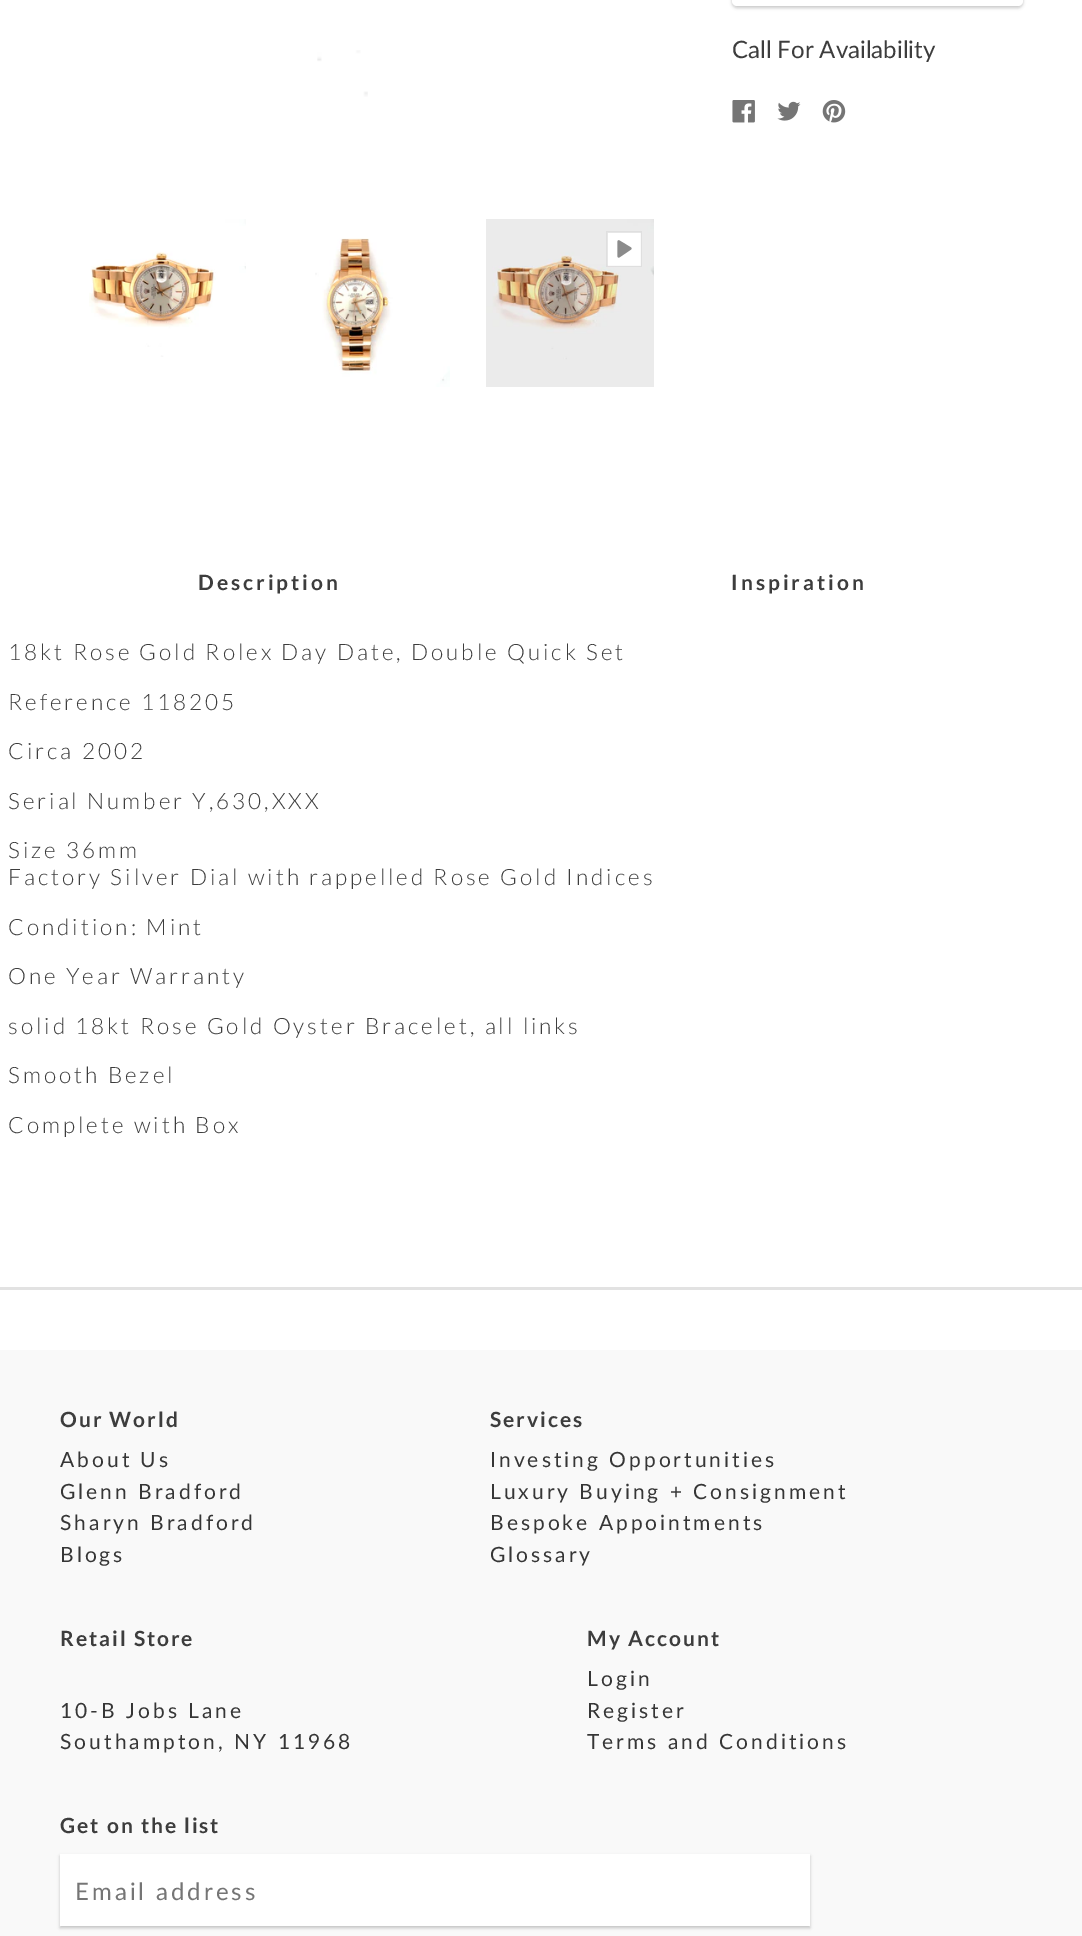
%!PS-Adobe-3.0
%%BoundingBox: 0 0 1082 1936
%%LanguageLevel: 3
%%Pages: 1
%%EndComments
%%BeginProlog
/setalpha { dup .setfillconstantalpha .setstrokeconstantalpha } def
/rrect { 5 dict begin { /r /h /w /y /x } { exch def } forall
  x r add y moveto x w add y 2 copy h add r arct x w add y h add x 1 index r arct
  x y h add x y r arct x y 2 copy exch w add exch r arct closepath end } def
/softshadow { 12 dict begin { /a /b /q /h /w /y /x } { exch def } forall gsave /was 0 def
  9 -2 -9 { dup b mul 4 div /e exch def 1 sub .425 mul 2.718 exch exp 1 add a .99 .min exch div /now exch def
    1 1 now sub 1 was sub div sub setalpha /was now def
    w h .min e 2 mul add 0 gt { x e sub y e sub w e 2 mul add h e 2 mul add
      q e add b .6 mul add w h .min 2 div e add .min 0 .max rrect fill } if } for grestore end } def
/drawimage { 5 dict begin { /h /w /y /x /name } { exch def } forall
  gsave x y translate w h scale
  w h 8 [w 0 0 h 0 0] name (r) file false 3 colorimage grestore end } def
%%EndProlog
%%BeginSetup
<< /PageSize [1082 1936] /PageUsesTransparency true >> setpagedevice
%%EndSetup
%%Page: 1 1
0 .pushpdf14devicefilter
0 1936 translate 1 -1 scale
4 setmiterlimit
1 setgray
0 0 1082 1936 rectfill
(images/1.raw) 317 50 51 47 drawimage
(images/2.raw) 89 219 157 138 drawimage
(images/3.raw) 315 238 135 149 drawimage
(images/4.raw) 486 219 168 168 drawimage
(images/5.raw) 606 231 36 36 drawimage
0 setgray
732 -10 291 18 5 1.5 0.2 softshadow
1 setgray
732 -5 291 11 5 rrect fill
(images/6.raw) 732 100 23 23 drawimage
(images/7.raw) 777 101 24 20 drawimage
(images/8.raw) 822 100 24 23 drawimage
0.886 setgray
0 1287 1082 3 rectfill
0.976 setgray
0 1350 1082 586 rectfill
0 setgray
60 1856 750 72 0 1.5 0.2 softshadow
1 setgray
60 1854 750 72 rectfill
/Lato-Regular [24 0 0 -24 0 0] selectfont
0.239 setgray
732 58 moveto (Call For Availability) show
/Lato-Bold [21 0 0 -21 0 0] selectfont
198 590 moveto 3 0 (Description) ashow
731 590 moveto 3 0 (Inspiration) ashow
/Lato-Light [22.5 0 0 -22.5 0 0] selectfont
8 660 moveto 3 0 (18kt Rose Gold Rolex Day Date, Double Quick Set) ashow
8 710 moveto 3 0 (Reference 118205) ashow
8 759 moveto 3 0 (Circa 2002) ashow
8 809 moveto 3 0 (Serial Number Y,630,XXX) ashow
8 858 moveto 3 0 (Size 36mm) ashow
8 885 moveto 3 0 (Factory Silver Dial with rappelled Rose Gold Indices) ashow
8 935 moveto 3 0 (Condition: Mint) ashow
8 984 moveto 3 0 (One Year Warranty) ashow
8 1034 moveto 3 0 (solid 18kt Rose Gold Oyster Bracelet, all links) ashow
8 1083 moveto 3 0 (Smooth Bezel) ashow
8 1133 moveto 3 0 (Complete with Box) ashow
/Lato-Bold [21 0 0 -21 0 0] selectfont
60 1427 moveto 2 0 (Our World) ashow
/Lato-Regular [21 0 0 -21 0 0] selectfont
0.212 setgray
60 1467 moveto 3 0 (About Us) ashow
60 1499 moveto 3 0 (Glenn Bradford) ashow
60 1530 moveto 3 0 (Sharyn Bradford) ashow
60 1562 moveto 3 0 (Blogs) ashow
/Lato-Bold [21 0 0 -21 0 0] selectfont
0.239 setgray
490 1427 moveto 2 0 (Services) ashow
/Lato-Regular [21 0 0 -21 0 0] selectfont
0.212 setgray
490 1467 moveto 3 0 (Investing Opportunities) ashow
490 1499 moveto 3 0 (Luxury Buying + Consignment) ashow
490 1530 moveto 3 0 (Bespoke Appointments) ashow
490 1562 moveto 3 0 (Glossary) ashow
/Lato-Bold [21 0 0 -21 0 0] selectfont
0.239 setgray
60 1646 moveto 2 0 (Retail Store) ashow
/Lato-Regular [21 0 0 -21 0 0] selectfont
0.212 setgray
60 1718 moveto 3 0 (10-B Jobs Lane) ashow
60 1749 moveto 3 0 (Southampton, NY 11968) ashow
/Lato-Bold [21 0 0 -21 0 0] selectfont
0.239 setgray
587 1646 moveto 2 0 (My Account) ashow
/Lato-Regular [21 0 0 -21 0 0] selectfont
0.212 setgray
587 1686 moveto 3 0 (Login) ashow
587 1718 moveto 3 0 (Register) ashow
587 1749 moveto 3 0 (Terms and Conditions) ashow
/Lato-Bold [21 0 0 -21 0 0] selectfont
0.239 setgray
60 1833 moveto 2 0 (Get on the list) ashow
/Lato-Regular [24 0 0 -24 0 0] selectfont
0.459 setgray
75 1900 moveto 3 0 (Email address) ashow
.poppdf14devicefilter showpage
%%EOF
